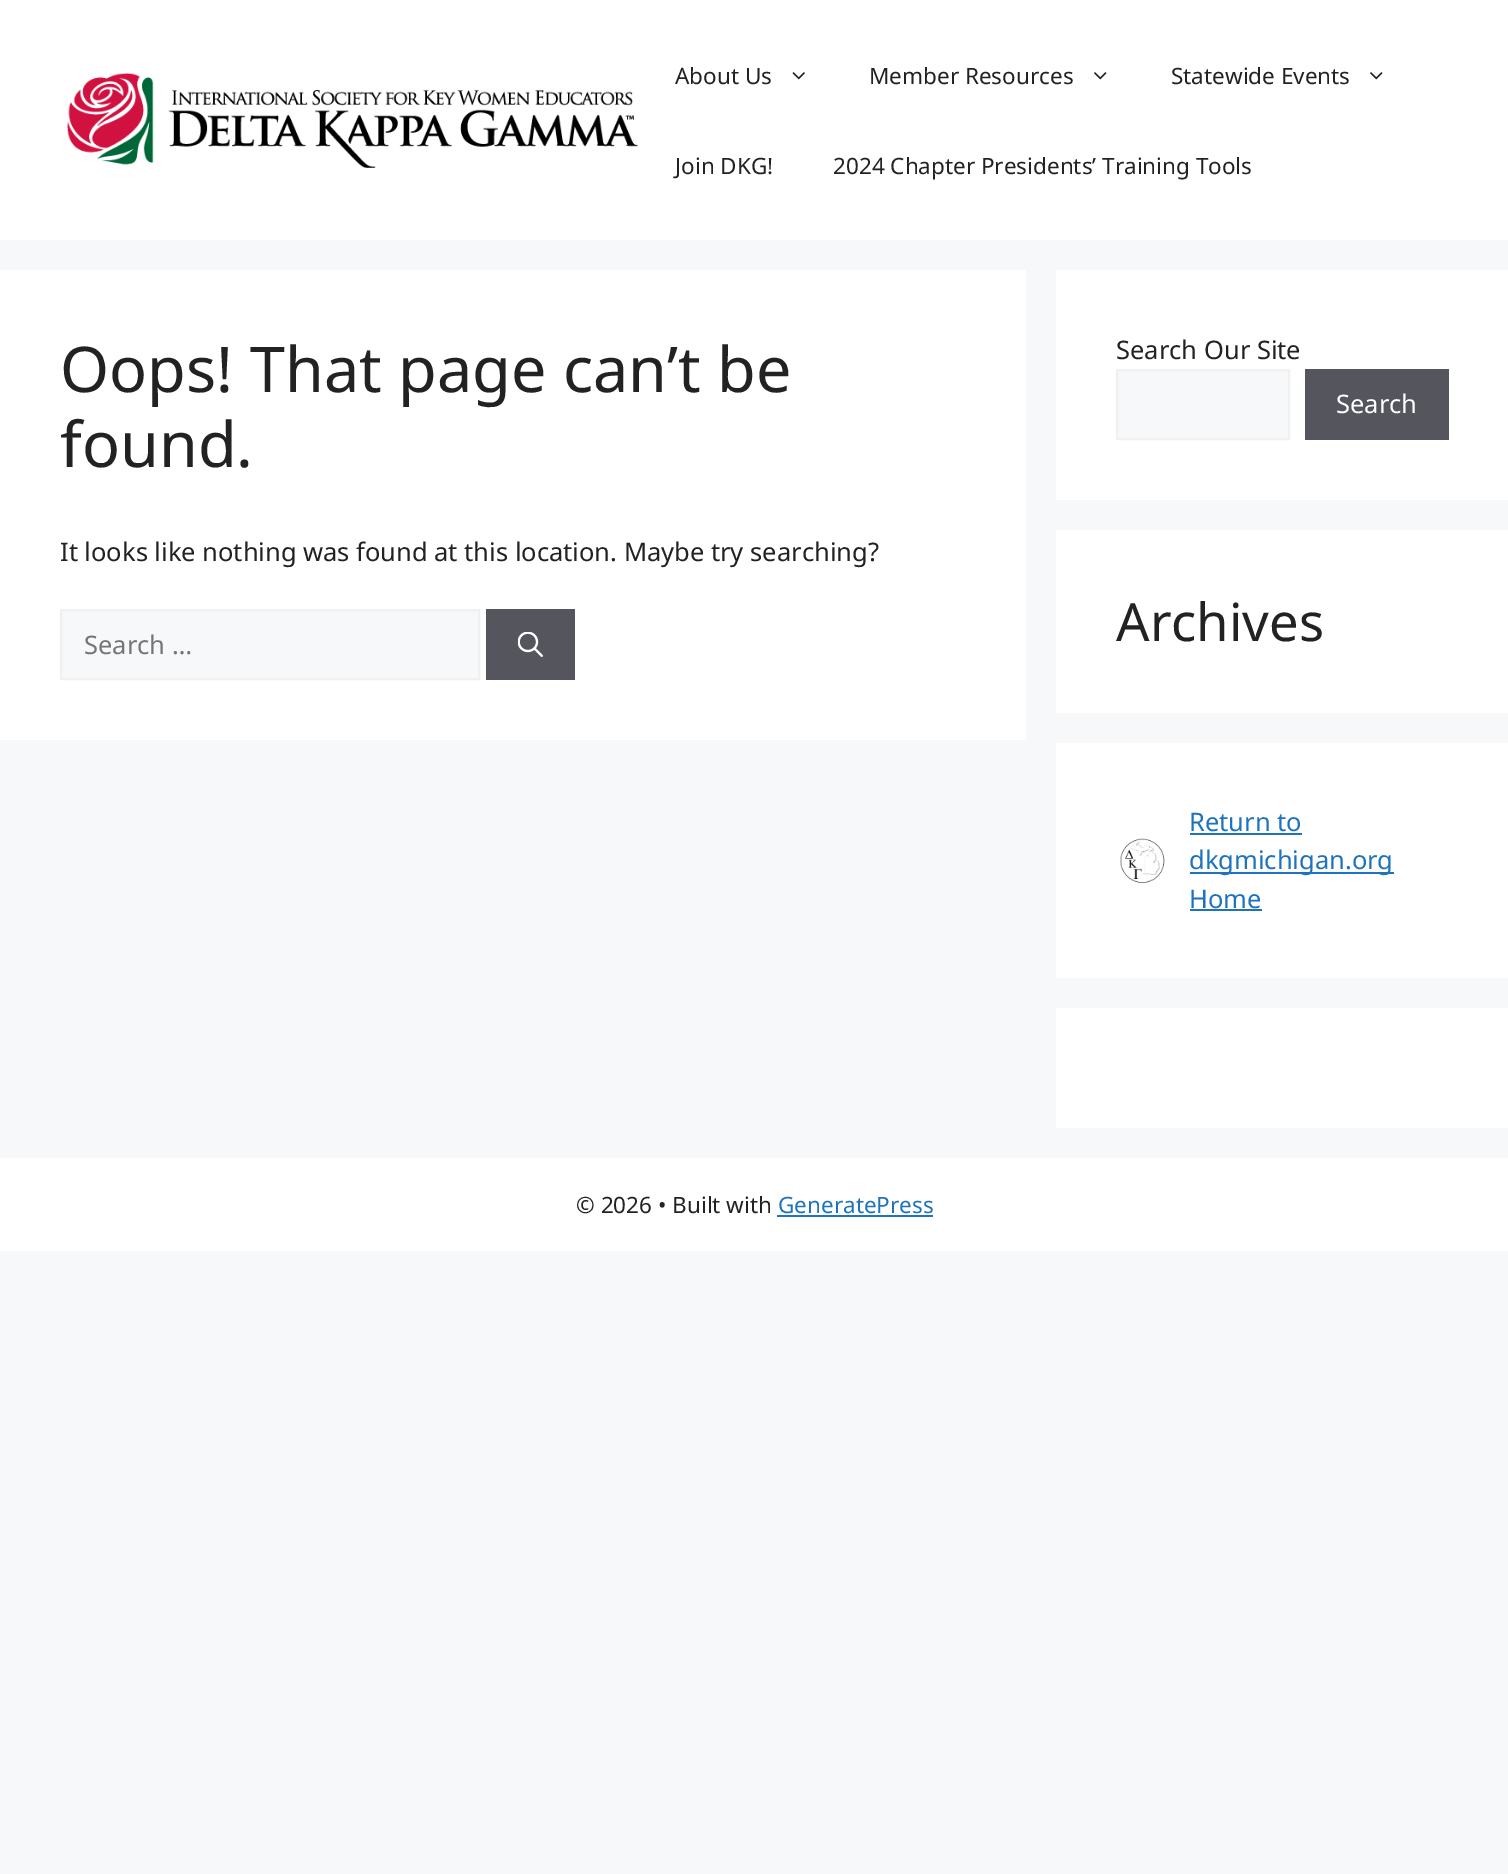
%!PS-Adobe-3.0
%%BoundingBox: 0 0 1508 1874
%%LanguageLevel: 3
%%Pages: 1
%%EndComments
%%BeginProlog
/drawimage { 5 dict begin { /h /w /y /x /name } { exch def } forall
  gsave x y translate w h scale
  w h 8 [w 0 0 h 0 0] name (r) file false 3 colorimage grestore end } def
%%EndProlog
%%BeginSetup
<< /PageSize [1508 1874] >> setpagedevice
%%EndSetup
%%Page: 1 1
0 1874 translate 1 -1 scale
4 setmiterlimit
0.969 0.973 0.976 setrgbcolor
0 0 1508 1874 rectfill
1 setgray
0 0 1508 240 rectfill
(images/1.raw) 67 73 571 95 drawimage
(images/2.raw) 792 72 13 8 drawimage
(images/3.raw) 1094 72 13 8 drawimage
(images/3.raw) 1370 72 13 8 drawimage
0 270 1026 470 rectfill
0.969 0.973 0.976 setrgbcolor
newpath 61 610 moveto 479 610 lineto 479 679 lineto 61 679 lineto closepath gsave fill grestore
0.941 setgray
2 setlinewidth
stroke
0.333 0.333 0.369 setrgbcolor
486 609 89 71 rectfill
(images/4.raw) 518 632 25 25 drawimage
1 setgray
1056 270 452 230 rectfill
0.969 0.973 0.976 setrgbcolor
newpath 1117 370 moveto 1289 370 lineto 1289 439 lineto 1117 439 lineto closepath gsave fill grestore
0.941 setgray
stroke
0.333 0.333 0.369 setrgbcolor
1305 369 144 71 rectfill
1 setgray
1056 530 452 183 rectfill
1056 743 452 235 rectfill
(images/5.raw) 1120 838 45 45 drawimage
0.118 0.451 0.745 setrgbcolor
1190 833 112 2 rectfill
1190 872 204 2 rectfill
1190 909 72 2 rectfill
1 setgray
1056 1008 452 120 rectfill
0 1158 1508 93 rectfill
0.118 0.451 0.745 setrgbcolor
777 1215 156 2 rectfill
/NotoSans-Regular [22.5 0 0 -22.5 0 0] selectfont
0.133 setgray
675 84 moveto (About Us) show
869 84 moveto (Member Resources) show
1171 84 moveto (Statewide Events) show
675 174 moveto (Join DKG!) show
833 174 moveto (2024 Chapter Presidents’ Training Tools) show
/NotoSans-Regular [63 0 0 -63 0 0] selectfont
60 392 moveto (Oops! That page can’t be) show
60 467 moveto (found.) show
/NotoSans-Regular [25.5 0 0 -25.5 0 0] selectfont
60 561 moveto (It looks like nothing was found at this location. Maybe try searching?) show
0.459 setgray
84 654 moveto (Search …) show
0.133 setgray
1116 359 moveto (Search Our Site) show
1 setgray
1336 413 moveto (Search) show
/NotoSans-Regular [52.5 0 0 -52.5 0 0] selectfont
0.133 setgray
1116 641 moveto (Archives) show
/NotoSans-Regular [25.5 0 0 -25.5 0 0] selectfont
0.118 0.451 0.745 setrgbcolor
1189 831 moveto (Return to) show
1189 869 moveto (dkgmichigan.org) show
1189 908 moveto (Home) show
/NotoSans-Regular [22.5 0 0 -22.5 0 0] selectfont
0.133 setgray
576 1213 moveto (© 2026 • Built with) show
0.118 0.451 0.745 setrgbcolor
778 1213 moveto (GeneratePress) show
showpage
%%EOF
